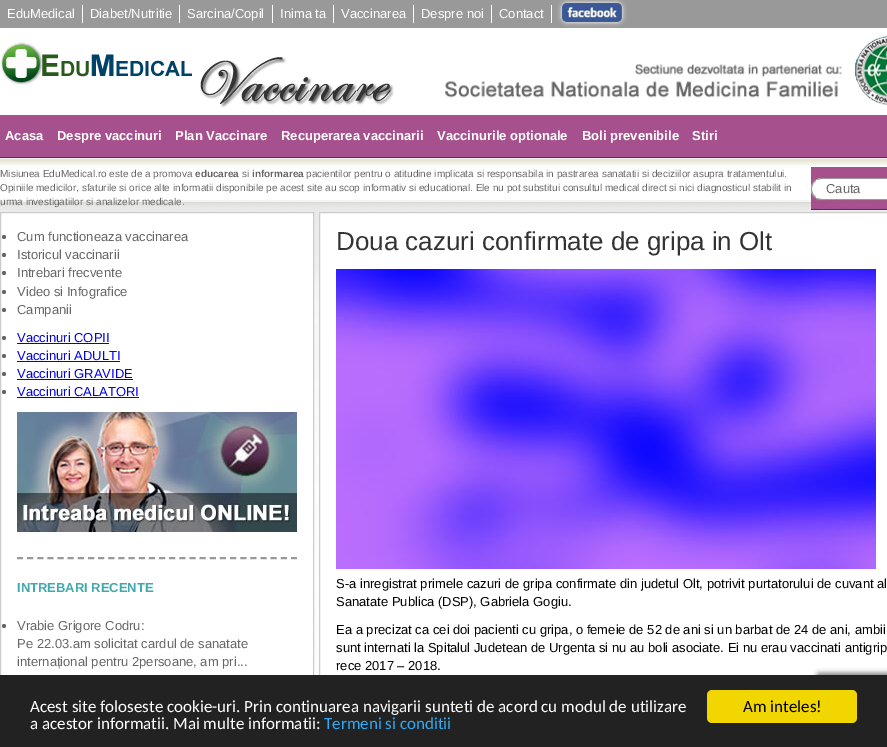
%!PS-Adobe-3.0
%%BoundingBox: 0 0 887 747
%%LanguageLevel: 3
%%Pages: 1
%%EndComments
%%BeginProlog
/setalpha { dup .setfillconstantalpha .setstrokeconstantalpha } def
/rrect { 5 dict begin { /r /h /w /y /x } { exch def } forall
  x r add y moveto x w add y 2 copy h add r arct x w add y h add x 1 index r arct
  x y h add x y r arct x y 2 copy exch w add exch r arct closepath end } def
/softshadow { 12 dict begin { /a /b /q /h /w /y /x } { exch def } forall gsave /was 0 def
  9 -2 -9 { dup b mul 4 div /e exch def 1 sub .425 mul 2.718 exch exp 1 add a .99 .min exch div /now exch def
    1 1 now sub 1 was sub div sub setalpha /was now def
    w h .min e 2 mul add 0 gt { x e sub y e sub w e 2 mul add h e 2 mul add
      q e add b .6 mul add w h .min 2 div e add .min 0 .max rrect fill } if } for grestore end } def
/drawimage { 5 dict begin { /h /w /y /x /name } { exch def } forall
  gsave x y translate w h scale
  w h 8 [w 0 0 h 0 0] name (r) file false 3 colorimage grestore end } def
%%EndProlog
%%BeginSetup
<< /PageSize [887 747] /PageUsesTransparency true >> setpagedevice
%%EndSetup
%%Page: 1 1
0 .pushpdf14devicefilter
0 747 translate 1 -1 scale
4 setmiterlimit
1 setgray
0 0 887 747 rectfill
0.6 setgray
0 0 887 28 rectfill
1 setgray
82 5 1 18 rectfill
179 5 1 18 rectfill
272 5 1 18 rectfill
333 5 1 18 rectfill
413 5 1 18 rectfill
491 5 1 18 rectfill
551 5 1 18 rectfill
562 3 60 19 5 2.5 1 softshadow
(images/1.raw) 562 3 60 19 drawimage
(images/2.raw) 1 42 191 43 drawimage
(images/3.raw) 200 57 194 51 drawimage
(images/4.raw) 445 35 442 71 drawimage
0.651 0.318 0.557 setrgbcolor
0 115 887 42 rectfill
(images/6.raw) 0 157 887 45 drawimage
(images/8.raw) 0 202 887 329 drawimage
(images/5.raw) 811 167 76 43 drawimage
1 setgray
816 180 71 18 rectfill
(images/7.raw) 314 531 5 144 drawimage
1 213 312 318 rectfill
0.8 setgray
0.5 212.5 313 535 rectstroke
0.4 setgray
newpath 4 237 2 0 360 arc closepath fill
newpath 4 255 2 0 360 arc closepath fill
newpath 4 273 2 0 360 arc closepath fill
newpath 4 292 2 0 360 arc closepath fill
newpath 4 310 2 0 360 arc closepath fill
newpath 4 338 2 0 360 arc closepath fill
0 0 0.933 setrgbcolor
17 343 92 1 rectfill
0.4 setgray
newpath 4 356 2 0 360 arc closepath fill
0 0 0.933 setrgbcolor
17 361 103 1 rectfill
0.4 setgray
newpath 4 374 2 0 360 arc closepath fill
0 0 0.933 setrgbcolor
17 379 116 1 rectfill
0.4 setgray
newpath 4 392 2 0 360 arc closepath fill
0 0 0.933 setrgbcolor
17 397 122 1 rectfill
0.6 setgray
2 setlinewidth
[6 4.15] 0 setdash
newpath 17 558 moveto 297 558 lineto stroke
(images/9.raw) 17 412 280 120 drawimage
0.4 setgray
newpath 4 626 2 0 360 arc closepath fill
1 setgray
320 213 567 318 rectfill
0.8 setgray
1 setlinewidth
[] 0 setdash
319.5 212.5 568 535 rectstroke
(images/10.raw) 336 269 540 300 drawimage
0.502 setgray
817 673 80 60 2 2.5 1 softshadow
0.133 setgray
0 675 887 72 rectfill
0.945 0.839 0 setrgbcolor
707 690 150 33 5 rrect fill
/LiberationSans-Regular [13 0 0 -13 0 0] selectfont
1 setgray
7 18 moveto (EduMedical) show
90 18 moveto (Diabet/Nutritie) show
187 18 moveto (Sarcina/Copil) show
280 18 moveto (Inima ta) show
341 18 moveto (Vaccinarea) show
421 18 moveto (Despre noi) show
499 18 moveto (Contact) show
/LiberationSans-Bold [13 0 0 -13 0 0] selectfont
5 140 moveto (Acasa) show
57 140 moveto (Despre vaccinuri) show
175 140 moveto (Plan Vaccinare) show
281 140 moveto (Recuperarea vaccinarii) show
437 140 moveto (Vaccinurile optionale) show
582 140 moveto (Boli prevenibile) show
692 140 moveto (Stiri) show
/LiberationSans-Regular [13 0 0 -13 0 0] selectfont
0.4 setgray
826 193 moveto (Cauta) show
/LiberationSans-Regular [10 0 0 -10 0 0] selectfont
0 177 moveto (Misiunea EduMedical.ro este de a promova) show
/LiberationSans-Bold [10 0 0 -10 0 0] selectfont
195 177 moveto (educarea) show
/LiberationSans-Regular [10 0 0 -10 0 0] selectfont
242 177 moveto (si) show
/LiberationSans-Bold [10 0 0 -10 0 0] selectfont
252 177 moveto (informarea) show
/LiberationSans-Regular [10 0 0 -10 0 0] selectfont
306 177 moveto (pacientilor pentru o atitudine implicata si responsabila in pastrarea sanatatii si deciziilor asupra tratamentului.) show
0 191 moveto (Opiniile medicilor, sfaturile si orice alte informatii disponibile pe acest site au scop informativ si educational. Ele nu pot substitui consultul medical direct si nici diagnosticul stabilit in) show
0 205 moveto (urma investigatiilor si analizelor medicale.) show
/LiberationSans-Regular [13 0 0 -13 0 0] selectfont
17 241 moveto (Cum functioneaza vaccinarea) show
17 259 moveto (Istoricul vaccinarii) show
17 277 moveto (Intrebari frecvente) show
17 296 moveto (Video si Infografice) show
17 314 moveto (Campanii) show
0 0 0.933 setrgbcolor
17 342 moveto (Vaccinuri COPII) show
17 360 moveto (Vaccinuri ADULTI) show
17 378 moveto (Vaccinuri GRAVIDE) show
17 396 moveto (Vaccinuri CALATORI) show
/LiberationSans-Bold [13 0 0 -13 0 0] selectfont
0.259 0.667 0.675 setrgbcolor
17 592 moveto (INTREBARI RECENTE) show
/LiberationSans-Regular [13 0 0 -13 0 0] selectfont
0.4 setgray
17 630 moveto (Vrabie Grigore Codru:) show
17 648 moveto (Pe 22.03.am solicitat cardul de sanatate) show
17 666 moveto (internațional pentru 2persoane, am pri...) show
/LiberationSans-Regular [26 0 0 -26 0 0] selectfont
0.2 setgray
336 250 moveto (Doua cazuri confirmate de gripa in Olt) show
/LiberationSans-Regular [13 0 0 -13 0 0] selectfont
0 setgray
336 588 moveto (S-a inregistrat primele cazuri de gripa confirmate din judetul Olt, potrivit purtatorului de cuvant al) show
336 606 moveto (Sanatate Publica \(DSP\), Gabriela Gogiu.) show
336 634 moveto (Ea a precizat ca cei doi pacienti cu gripa, o femeie de 52 de ani si un barbat de 24 de ani, ambii) show
336 652 moveto (sunt internati la Spitalul Judetean de Urgenta si nu au boli asociate. Ei nu erau vaccinati antigrip) show
336 670 moveto (rece 2017 – 2018.) show
/Carlito-Regular [17 0 0 -17 0 0] selectfont
1 setgray
30 712 moveto (Acest site foloseste cookie-uri. Prin continuarea navigarii sunteti de acord cu modul de utilizare) show
30 729 moveto (a acestor informatii. Mai multe informatii:) show
0.192 0.659 0.941 setrgbcolor
324 729 moveto (Termeni si conditii) show
0 setgray
743 712 moveto (Am inteles!) show
.poppdf14devicefilter showpage
%%EOF
